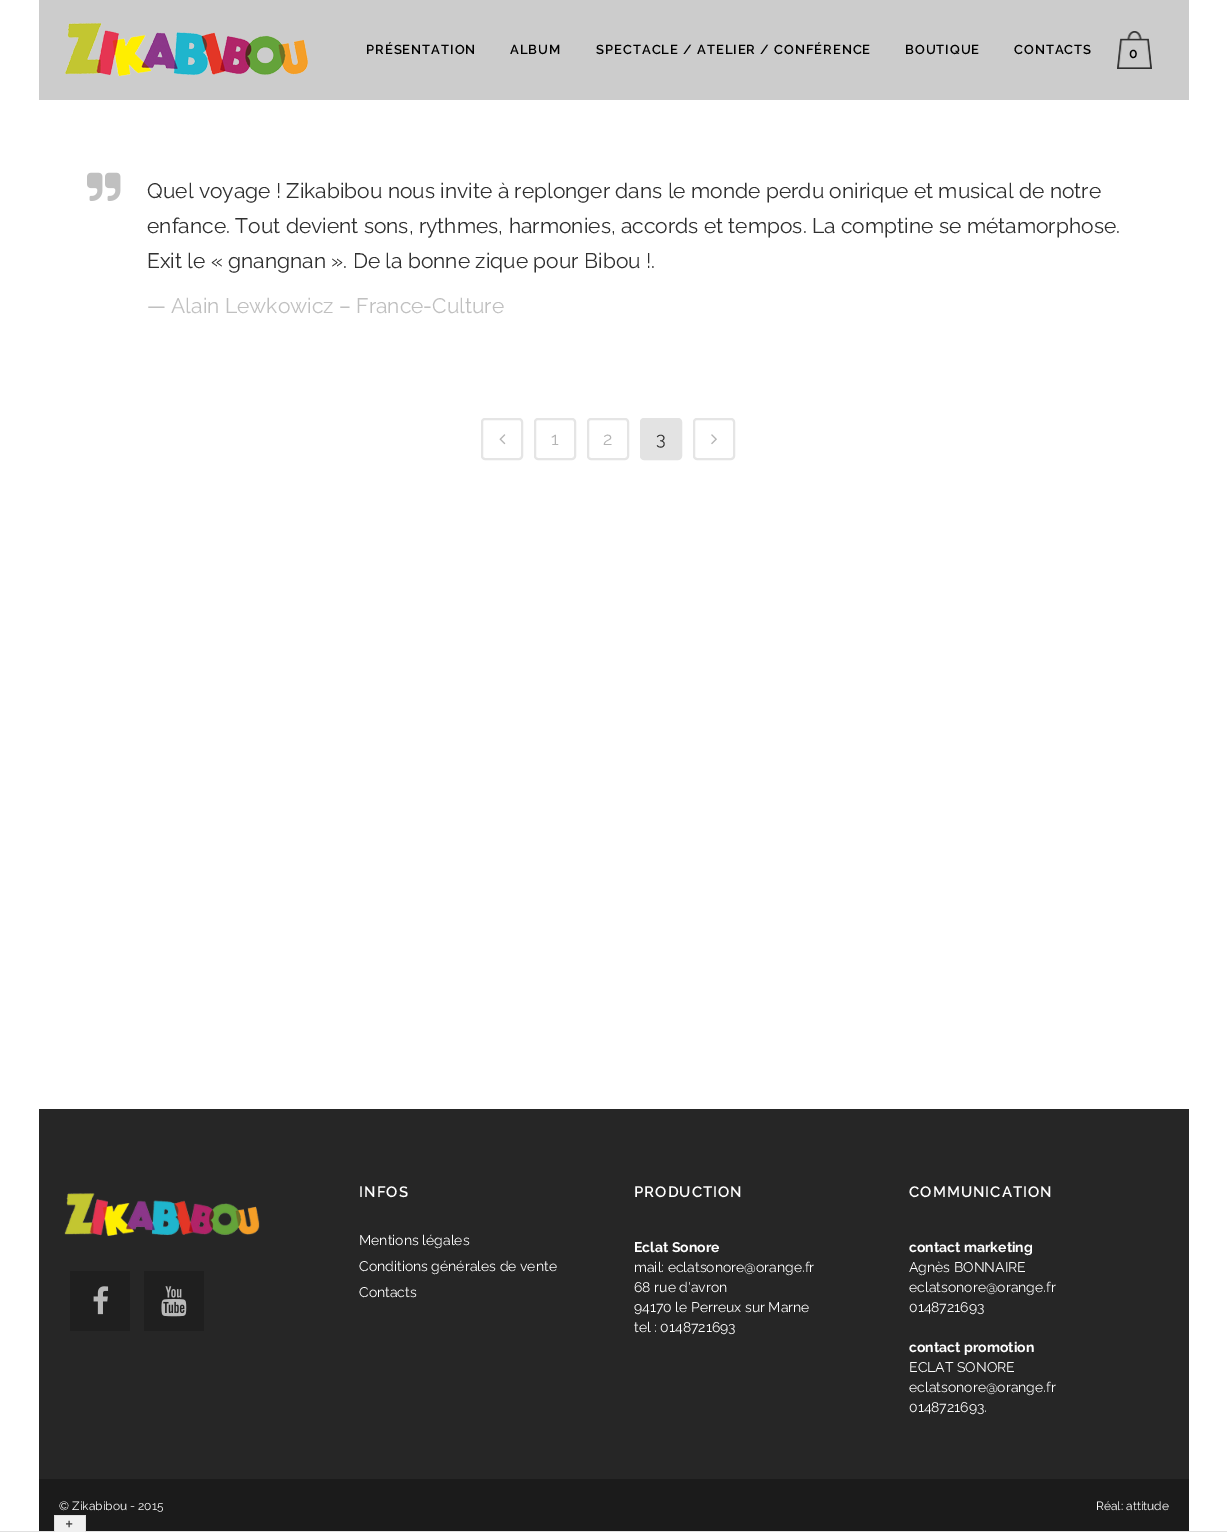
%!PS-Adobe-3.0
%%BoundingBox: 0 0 1227 1532
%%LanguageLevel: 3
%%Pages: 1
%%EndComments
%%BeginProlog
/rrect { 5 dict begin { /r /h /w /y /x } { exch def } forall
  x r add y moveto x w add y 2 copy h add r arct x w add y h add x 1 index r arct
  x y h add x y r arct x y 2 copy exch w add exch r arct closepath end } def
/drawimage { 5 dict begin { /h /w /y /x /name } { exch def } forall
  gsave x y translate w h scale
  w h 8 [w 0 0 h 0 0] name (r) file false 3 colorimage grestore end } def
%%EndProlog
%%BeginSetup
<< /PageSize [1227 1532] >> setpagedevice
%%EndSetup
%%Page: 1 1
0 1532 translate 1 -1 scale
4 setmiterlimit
1 setgray
0 0 1227 1532 rectfill
0.8 setgray
39 0 1150 100 rectfill
(images/1.raw) 65 23 243 53 drawimage
(images/2.raw) 1117 31 35 38 drawimage
(images/3.raw) 87 172 34 29 drawimage
0.898 setgray
2 setlinewidth
482 419 40 40 3 rrect stroke
(images/4.raw) 499 434 7 11 drawimage
535 419 40 40 3 rrect stroke
588 419 40 40 3 rrect stroke
0.89 setgray
641 419 40 40 3 rrect gsave fill grestore
stroke
0.898 setgray
694 419 40 40 3 rrect stroke
(images/5.raw) 711 434 6 11 drawimage
0.149 setgray
39 1109 1150 370 rectfill
(images/6.raw) 64 1193 196 43 drawimage
0.122 setgray
70 1271 60 60 rectfill
(images/7.raw) 93 1286 16 29 drawimage
144 1271 60 60 rectfill
(images/8.raw) 161 1286 26 31 drawimage
0.106 setgray
39 1479 1150 52 rectfill
0.878 setgray
0 1531 1227 1 rectfill
0.941 setgray
55 1516 30 16 rectfill
0.878 setgray
54 1515 32 1 rectfill
85 1515 1 17 rectfill
54 1515 1 17 rectfill
/Raleway-SemiBold [13 0 0 -13 0 0] selectfont
0 setgray
366 54 moveto 1 0 (PRÉSENTATION) ashow
510 54 moveto 1 0 (ALBUM) ashow
596 54 moveto 1 0 (SPECTACLE / ATELIER / CONFÉRENCE) ashow
905 54 moveto 1 0 (BOUTIQUE) ashow
1014 54 moveto 1 0 (CONTACTS) ashow
/Raleway-SemiBold [14 0 0 -14 0 0] selectfont
1129 58 moveto (0) show
/Raleway-Regular [21 0 0 -21 0 0] selectfont
0.188 setgray
147 198 moveto (Quel voyage ! Zikabibou nous invite à replonger dans le monde perdu onirique et musical de notre) show
147 233 moveto (enfance. Tout devient sons, rythmes, harmonies, accords et tempos. La comptine se métamorphose.) show
147 268 moveto (Exit le « gnangnan ». De la bonne zique pour Bibou !.) show
0.753 setgray
147 313 moveto (— Alain Lewkowicz – France-Culture) show
/Raleway-Regular [18 0 0 -18 0 0] selectfont
0.706 setgray
551 445 moveto (1) show
603 445 moveto (2) show
0.188 setgray
656 445 moveto (3) show
/Raleway-SemiBold [15 0 0 -15 0 0] selectfont
1 setgray
359 1197 moveto 1 0 (INFOS) ashow
/Raleway-Regular [14 0 0 -14 0 0] selectfont
359 1245 moveto (Mentions légales) show
359 1271 moveto (Conditions générales de vente) show
359 1297 moveto (Contacts) show
/Raleway-SemiBold [15 0 0 -15 0 0] selectfont
634 1197 moveto 1 0 (PRODUCTION) ashow
/Raleway-Bold [14 0 0 -14 0 0] selectfont
634 1252 moveto (Eclat Sonore) show
/Raleway-Regular [14 0 0 -14 0 0] selectfont
634 1272 moveto (mail: eclatsonore@orange.fr) show
634 1292 moveto (68 rue d'avron) show
634 1312 moveto (94170 le Perreux sur Marne) show
634 1332 moveto (tel : 0148721693) show
/Raleway-SemiBold [15 0 0 -15 0 0] selectfont
909 1197 moveto 1 0 (COMMUNICATION) ashow
/Raleway-Bold [14 0 0 -14 0 0] selectfont
909 1252 moveto (contact marketing) show
/Raleway-Regular [14 0 0 -14 0 0] selectfont
909 1272 moveto (Agnès BONNAIRE) show
909 1292 moveto (eclatsonore@orange.fr) show
909 1312 moveto (0148721693) show
/Raleway-Bold [14 0 0 -14 0 0] selectfont
909 1352 moveto (contact promotion) show
/Raleway-Regular [14 0 0 -14 0 0] selectfont
909 1372 moveto (ECLAT SONORE) show
909 1392 moveto (eclatsonore@orange.fr) show
909 1412 moveto (0148721693.) show
/Raleway-Regular [12 0 0 -12 0 0] selectfont
59 1510 moveto (© Zikabibou - 2015) show
1096 1510 moveto (Réal: attitude) show
/Raleway-Regular [20 0 0 -20 0 0] selectfont
0.235 setgray
65 1531 moveto (+) show
showpage
%%EOF
